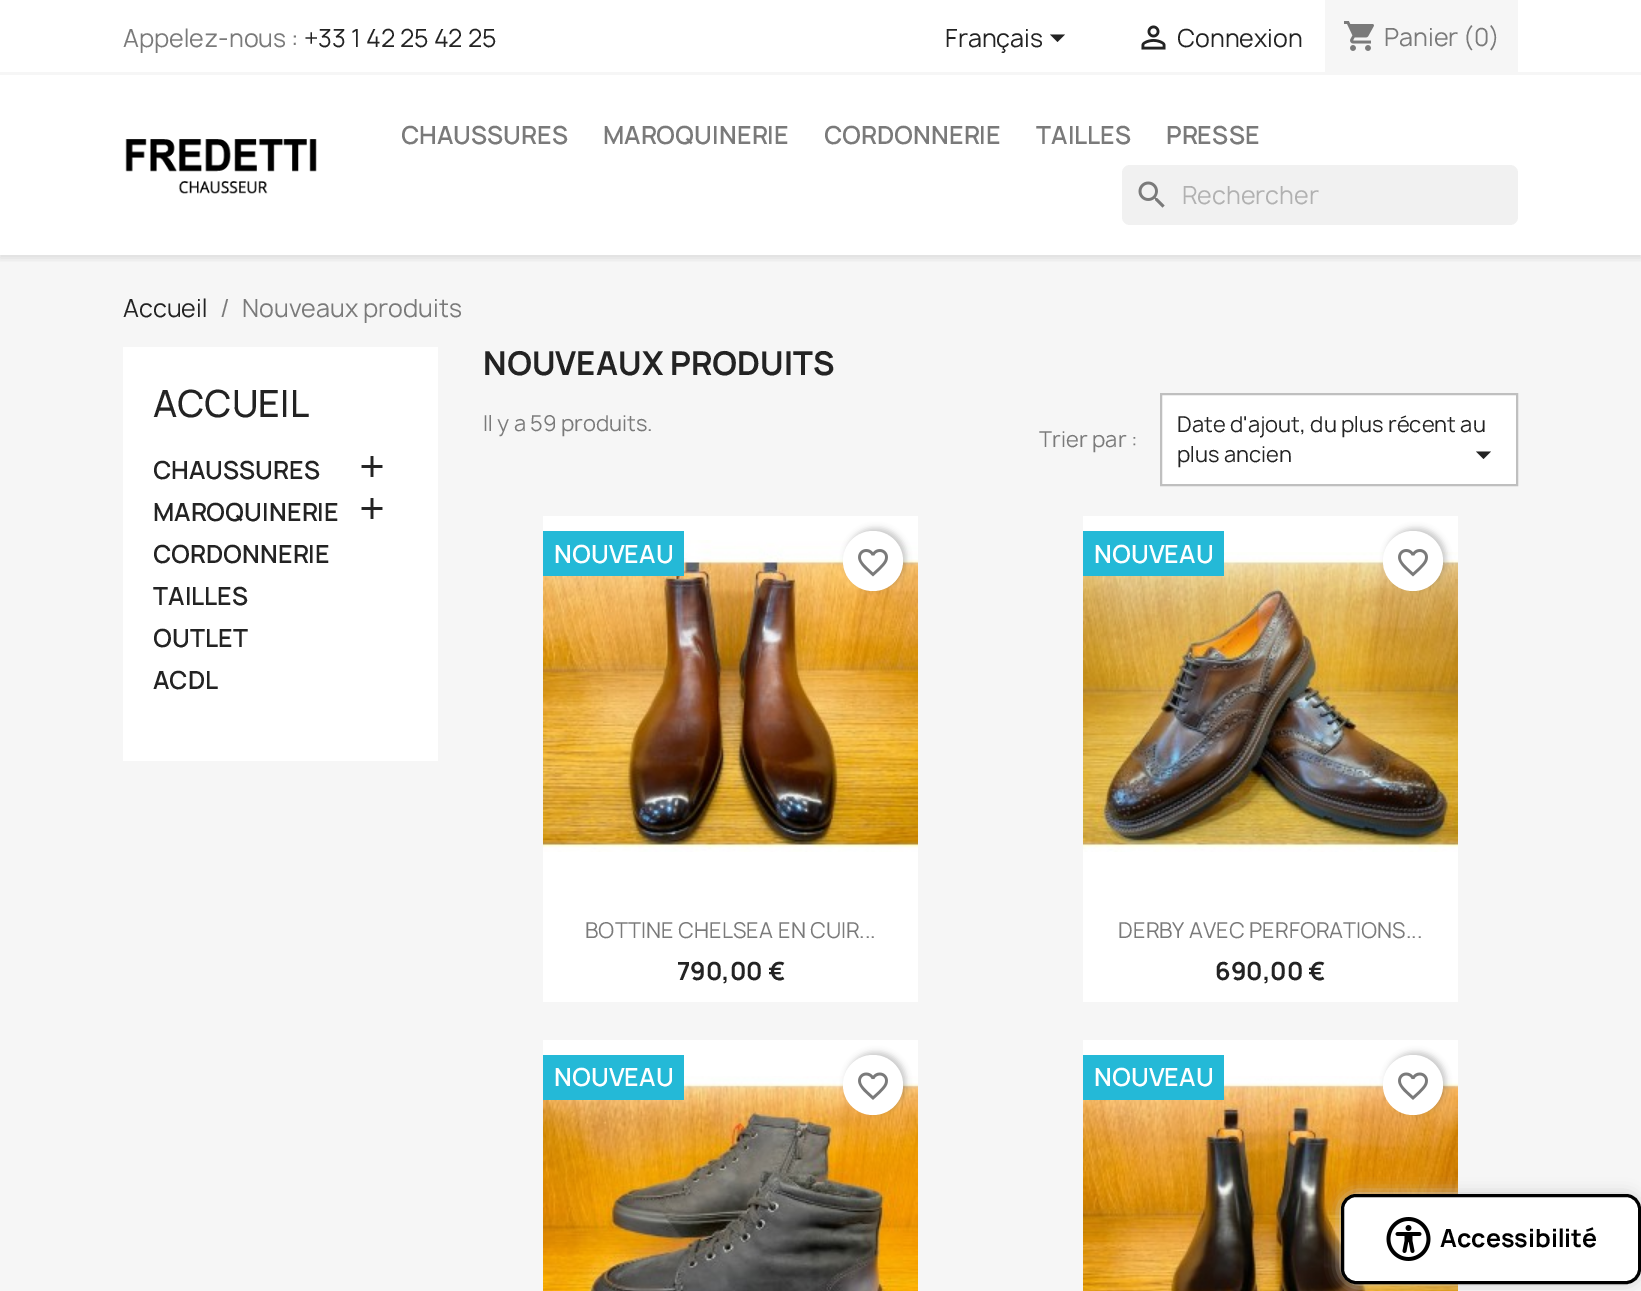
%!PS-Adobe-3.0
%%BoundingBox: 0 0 1641 1291
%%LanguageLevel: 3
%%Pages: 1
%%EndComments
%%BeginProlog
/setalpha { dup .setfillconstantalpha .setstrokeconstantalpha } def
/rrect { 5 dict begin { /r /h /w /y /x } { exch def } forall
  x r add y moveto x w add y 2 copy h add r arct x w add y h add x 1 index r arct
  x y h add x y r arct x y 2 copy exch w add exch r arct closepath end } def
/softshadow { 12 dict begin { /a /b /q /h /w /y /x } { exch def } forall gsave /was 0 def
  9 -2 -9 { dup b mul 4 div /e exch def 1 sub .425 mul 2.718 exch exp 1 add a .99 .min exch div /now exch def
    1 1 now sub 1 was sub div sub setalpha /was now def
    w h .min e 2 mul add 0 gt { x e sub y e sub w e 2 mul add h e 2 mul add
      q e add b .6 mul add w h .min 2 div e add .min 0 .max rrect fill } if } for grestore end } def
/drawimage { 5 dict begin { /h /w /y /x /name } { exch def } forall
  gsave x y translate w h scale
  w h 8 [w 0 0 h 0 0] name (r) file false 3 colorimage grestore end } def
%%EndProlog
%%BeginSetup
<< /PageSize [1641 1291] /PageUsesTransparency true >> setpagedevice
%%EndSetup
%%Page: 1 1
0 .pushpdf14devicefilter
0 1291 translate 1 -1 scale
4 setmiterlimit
1 setgray
0 0 1641 1291 rectfill
0.965 setgray
0 255 1641 1036 rectfill
gsave
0 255 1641 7 rectclip
0 setgray
0 3 1641 255 0 4 0.11 softshadow
grestore
0 72 1641 3 rectfill
0.137 setgray
newpath 1050 34.5 moveto 1065 34.5 lineto 1057.5 42 lineto closepath fill
(images/1.raw) 1141 25 25 25 drawimage
0.965 setgray
1325 0 193 72 rectfill
(images/2.raw) 1344 21 30 30 drawimage
(images/3.raw) 125 139 192 55 drawimage
0.945 setgray
1122 165 396 60 8 rrect fill
(images/4.raw) 1138 181 27 27 drawimage
1 setgray
123 347 315 414 rectfill
(images/5.raw) 361 456 22 21 drawimage
(images/5.raw) 361 498 22 21 drawimage
newpath 1161 394 moveto 1517 394 lineto 1517 485 lineto 1161 485 lineto closepath gsave fill grestore
0.749 setgray
2 setlinewidth
stroke
0.137 setgray
newpath 1476 451.5 moveto 1491 451.5 lineto 1483.5 459 lineto closepath fill
1 setgray
543 516 375 486 rectfill
(images/7.raw) 543 540 375 312 drawimage
0 setgray
846 528 60 60 30 3 0.2 softshadow
1 setgray
newpath 873 561 30 0 360 arc closepath fill
(images/6.raw) 858 549 30 28 drawimage
0.141 0.725 0.843 setrgbcolor
543 531 141 45 rectfill
1 setgray
1083 516 375 486 rectfill
(images/8.raw) 1083 552 375 300 drawimage
0.141 0.725 0.843 setrgbcolor
1083 531 141 45 rectfill
0 setgray
1386 528 60 60 30 3 0.2 softshadow
1 setgray
newpath 1413 561 30 0 360 arc closepath fill
(images/6.raw) 1398 549 30 28 drawimage
543 1040 375 36 rectfill
(images/10.raw) 543 1076 375 215 drawimage
0.141 0.725 0.843 setrgbcolor
543 1055 141 45 rectfill
0 setgray
846 1052 60 60 30 3 0.2 softshadow
1 setgray
newpath 873 1085 30 0 360 arc closepath fill
(images/9.raw) 858 1072 30 28 drawimage
1083 1040 375 36 rectfill
(images/11.raw) 1083 1076 375 215 drawimage
0.141 0.725 0.843 setrgbcolor
1083 1055 141 45 rectfill
0 setgray
1386 1052 60 60 30 3 0.2 softshadow
1 setgray
newpath 1413 1085 30 0 360 arc closepath fill
(images/9.raw) 1398 1072 30 28 drawimage
0.8 setgray
1341 1194 300 90 15 7.5 1 softshadow
1 setgray
1342.5 1195.5 297 87 13.5 rrect gsave fill grestore
0 setgray
3 setlinewidth
stroke
(images/12.raw) 1386 1217 45 44 drawimage
/Manrope-Regular [24 0 0 -24 0 0] selectfont
0.478 setgray
123 47 moveto (Appelez-nous :) show
0.137 setgray
304 47 moveto (+33 1 42 25 42 25) show
945 47 moveto (Français) show
1177 47 moveto (Connexion) show
0.478 setgray
1384 46 moveto (Panier \(0\)) show
/Manrope-SemiBold [24 0 0 -24 0 0] selectfont
401 144 moveto (CHAUSSURES) show
603 144 moveto (MAROQUINERIE) show
824 144 moveto (CORDONNERIE) show
1036 144 moveto (TAILLES) show
1166 144 moveto (PRESSE) show
/Manrope-Regular [24 0 0 -24 0 0] selectfont
0.694 setgray
1182 204 moveto (Rechercher) show
0.137 setgray
123 317 moveto (Accueil) show
0.478 setgray
220 317 moveto (/) show
242 317 moveto (Nouveaux produits) show
/Manrope-Medium [36 0 0 -36 0 0] selectfont
0.137 setgray
153 417 moveto (ACCUEIL) show
/Manrope-SemiBold [24 0 0 -24 0 0] selectfont
153 479 moveto (CHAUSSURES) show
153 521 moveto (MAROQUINERIE) show
153 563 moveto (CORDONNERIE) show
153 605 moveto (TAILLES) show
153 647 moveto (OUTLET) show
153 689 moveto (ACDL) show
/Manrope-Bold [31.5 0 0 -31.5 0 0] selectfont
483 375 moveto (NOUVEAUX PRODUITS) show
/Manrope-Regular [21 0 0 -21 0 0] selectfont
0.478 setgray
483 431 moveto (Il y a 59 produits.) show
1039 447 moveto (Trier par :) show
0.137 setgray
1177 432 moveto (Date d'ajout, du plus récent au) show
1177 462 moveto (plus ancien) show
/Manrope-SemiBold [24 0 0 -24 0 0] selectfont
1 setgray
554 563 moveto (NOUVEAU) show
/Manrope-Regular [21 0 0 -21 0 0] selectfont
0.478 setgray
585 938 moveto (BOTTINE CHELSEA EN CUIR...) show
/Manrope-Bold [24 0 0 -24 0 0] selectfont
0.137 setgray
677 980 moveto (790,00 €) show
/Manrope-SemiBold [24 0 0 -24 0 0] selectfont
1 setgray
1094 563 moveto (NOUVEAU) show
/Manrope-Regular [21 0 0 -21 0 0] selectfont
0.478 setgray
1118 938 moveto (DERBY AVEC PERFORATIONS...) show
/Manrope-Bold [24 0 0 -24 0 0] selectfont
0.137 setgray
1215 980 moveto (690,00 €) show
/Manrope-SemiBold [24 0 0 -24 0 0] selectfont
1 setgray
554 1086 moveto (NOUVEAU) show
1094 1086 moveto (NOUVEAU) show
/Manrope-Bold [24 0 0 -24 0 0] selectfont
0 setgray
1440 1247 moveto (Accessibilité) show
.poppdf14devicefilter showpage
%%EOF
